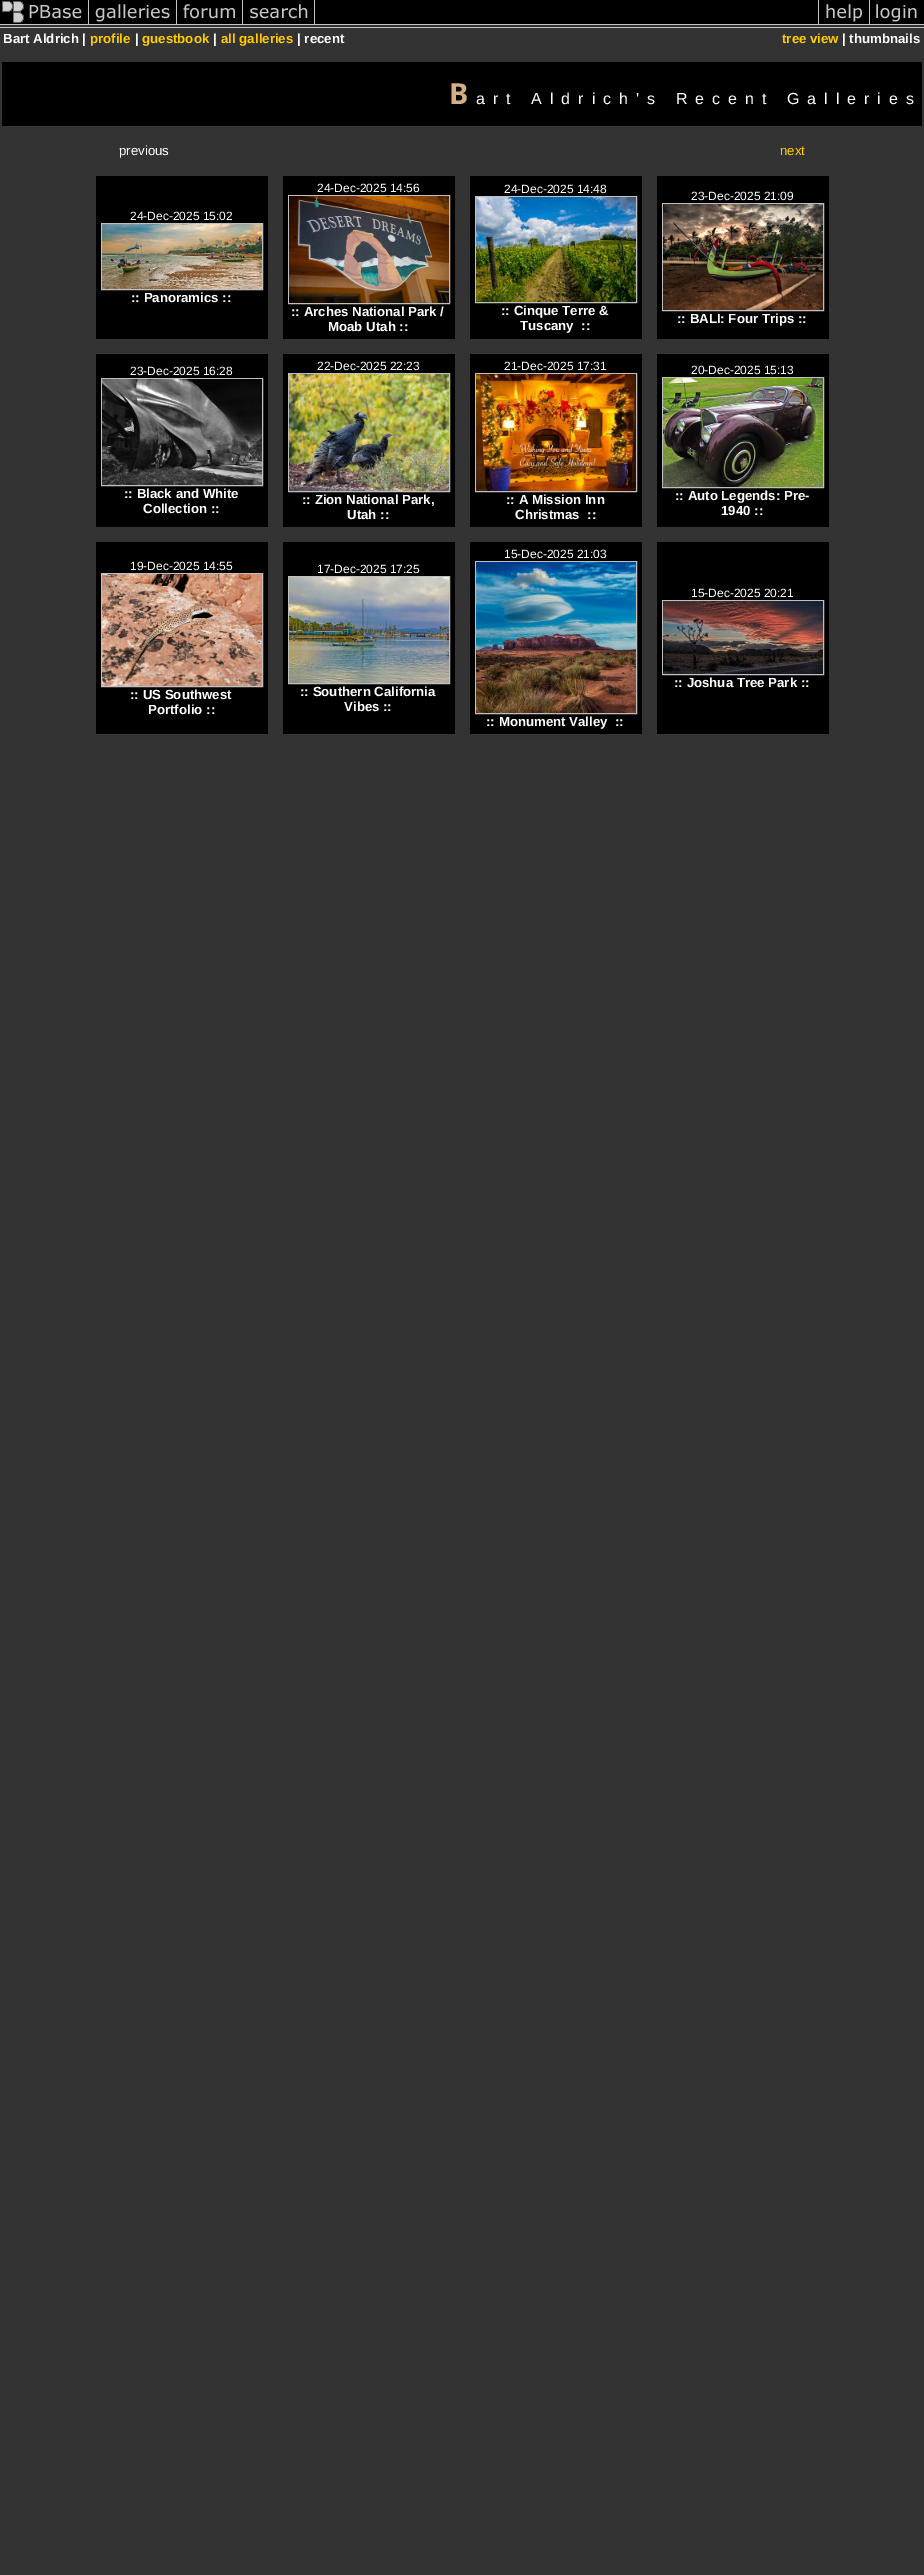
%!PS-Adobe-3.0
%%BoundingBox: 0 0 924 2575
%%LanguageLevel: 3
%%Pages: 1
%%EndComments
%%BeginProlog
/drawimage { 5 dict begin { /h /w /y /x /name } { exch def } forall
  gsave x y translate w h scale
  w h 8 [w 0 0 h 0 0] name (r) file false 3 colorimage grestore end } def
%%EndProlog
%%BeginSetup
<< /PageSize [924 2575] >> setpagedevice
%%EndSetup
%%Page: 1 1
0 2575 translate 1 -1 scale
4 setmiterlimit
0.2 setgray
0 0 924 2575 rectfill
(images/1.raw) 0 0 89 28 drawimage
(images/2.raw) 89 0 88 28 drawimage
(images/3.raw) 177 0 66 28 drawimage
(images/4.raw) 243 0 72 28 drawimage
(images/5.raw) 315 0 503 28 drawimage
(images/6.raw) 818 0 52 28 drawimage
(images/7.raw) 870 0 54 28 drawimage
0 setgray
2 62 920 64 rectfill
96 176 172 163 rectfill
0.753 setgray
101.5 223.5 161 66 rectstroke
(images/8.raw) 102 224 160 65 drawimage
0 setgray
283 176 172 163 rectfill
0.753 setgray
288.5 195.5 161 108 rectstroke
(images/9.raw) 289 196 160 107 drawimage
0 setgray
470 176 172 163 rectfill
0.753 setgray
475.5 196.5 161 106 rectstroke
(images/10.raw) 476 197 160 105 drawimage
0 setgray
657 176 172 163 rectfill
0.753 setgray
662.5 203.5 161 107 rectstroke
(images/11.raw) 663 204 160 106 drawimage
0 setgray
96 354 172 173 rectfill
0.753 setgray
101.5 378.5 161 107 rectstroke
(images/12.raw) 102 379 160 106 drawimage
0 setgray
283 354 172 173 rectfill
0.753 setgray
288.5 373.5 161 118 rectstroke
(images/13.raw) 289 374 160 117 drawimage
0 setgray
470 354 172 173 rectfill
0.753 setgray
475.5 373.5 161 118 rectstroke
(images/14.raw) 476 374 160 117 drawimage
0 setgray
657 354 172 173 rectfill
0.753 setgray
662.5 377.5 161 110 rectstroke
(images/15.raw) 663 378 160 109 drawimage
0 setgray
96 542 172 192 rectfill
0.753 setgray
101.5 573.5 161 113 rectstroke
(images/16.raw) 102 574 160 112 drawimage
0 setgray
283 542 172 192 rectfill
0.753 setgray
288.5 576.5 161 107 rectstroke
(images/17.raw) 289 577 160 106 drawimage
0 setgray
470 542 172 192 rectfill
0.753 setgray
475.5 561.5 161 152 rectstroke
(images/18.raw) 476 562 160 151 drawimage
0 setgray
657 542 172 192 rectfill
0.753 setgray
662.5 600.5 161 74 rectstroke
(images/19.raw) 663 601 160 73 drawimage
/LiberationSans-Bold [13.25 0 0 -13.25 0 0] selectfont
1 setgray
3 43 moveto (Bart Aldrich |) show
1 0.8 0 setrgbcolor
90 43 moveto (profile) show
1 setgray
135 43 moveto (|) show
1 0.8 0 setrgbcolor
142 43 moveto (guestbook) show
1 setgray
213 43 moveto (|) show
1 0.8 0 setrgbcolor
221 43 moveto (all galleries) show
1 setgray
297 43 moveto (| recent) show
1 0.8 0 setrgbcolor
782 43 moveto (tree view) show
1 setgray
842 43 moveto (| thumbnails) show
/NotoSans-Bold [29 0 0 -29 0 0] selectfont
0.835 0.682 0.514 setrgbcolor
449 104 moveto 8 0 (B) ashow
/LiberationSans-Regular [16 0 0 -16 0 0] selectfont
1 setgray
476 104 moveto 8 0 (art Aldrich's Recent Galleries) ashow
/LiberationSans-Regular [13.25 0 0 -13.25 0 0] selectfont
119 155 moveto (previous) show
1 0.8 0 setrgbcolor
780 155 moveto (next) show
/LiberationSans-Regular [12 0 0 -12 0 0] selectfont
1 setgray
130 220 moveto (24-Dec-2025 15:02) show
/LiberationSans-Bold [13.25 0 0 -13.25 0 0] selectfont
131 302 moveto (:: Panoramics ::) show
/LiberationSans-Regular [12 0 0 -12 0 0] selectfont
317 192 moveto (24-Dec-2025 14:56) show
/LiberationSans-Bold [13.25 0 0 -13.25 0 0] selectfont
291 316 moveto (:: Arches National Park /) show
328 331 moveto (Moab Utah ::) show
/LiberationSans-Regular [12 0 0 -12 0 0] selectfont
504 193 moveto (24-Dec-2025 14:48) show
/LiberationSans-Bold [13.25 0 0 -13.25 0 0] selectfont
501 315 moveto (:: Cinque Terre &) show
520 330 moveto (Tuscany  ::) show
/LiberationSans-Regular [12 0 0 -12 0 0] selectfont
691 200 moveto (23-Dec-2025 21:09) show
/LiberationSans-Bold [13.25 0 0 -13.25 0 0] selectfont
677 323 moveto (:: BALI: Four Trips ::) show
/LiberationSans-Regular [12 0 0 -12 0 0] selectfont
130 375 moveto (23-Dec-2025 16:28) show
/LiberationSans-Bold [13.25 0 0 -13.25 0 0] selectfont
124 498 moveto (:: Black and White) show
143 513 moveto (Collection ::) show
/LiberationSans-Regular [12 0 0 -12 0 0] selectfont
317 370 moveto (22-Dec-2025 22:23) show
/LiberationSans-Bold [13.25 0 0 -13.25 0 0] selectfont
302 504 moveto (:: Zion National Park,) show
347 519 moveto (Utah ::) show
/LiberationSans-Regular [12 0 0 -12 0 0] selectfont
504 370 moveto (21-Dec-2025 17:31) show
/LiberationSans-Bold [13.25 0 0 -13.25 0 0] selectfont
506 504 moveto (:: A Mission Inn) show
515 519 moveto (Christmas  ::) show
/LiberationSans-Regular [12 0 0 -12 0 0] selectfont
691 374 moveto (20-Dec-2025 15:13) show
/LiberationSans-Bold [13.25 0 0 -13.25 0 0] selectfont
675 500 moveto (:: Auto Legends: Pre-) show
721 515 moveto (1940 ::) show
/LiberationSans-Regular [12 0 0 -12 0 0] selectfont
130 570 moveto (19-Dec-2025 14:55) show
/LiberationSans-Bold [13.25 0 0 -13.25 0 0] selectfont
130 699 moveto (:: US Southwest) show
148 714 moveto (Portfolio ::) show
/LiberationSans-Regular [12 0 0 -12 0 0] selectfont
317 573 moveto (17-Dec-2025 17:25) show
/LiberationSans-Bold [13.25 0 0 -13.25 0 0] selectfont
300 696 moveto (:: Southern California) show
344 711 moveto (Vibes ::) show
/LiberationSans-Regular [12 0 0 -12 0 0] selectfont
504 558 moveto (15-Dec-2025 21:03) show
/LiberationSans-Bold [13.25 0 0 -13.25 0 0] selectfont
486 726 moveto (:: Monument Valley  ::) show
/LiberationSans-Regular [12 0 0 -12 0 0] selectfont
691 597 moveto (15-Dec-2025 20:21) show
/LiberationSans-Bold [13.25 0 0 -13.25 0 0] selectfont
674 687 moveto (:: Joshua Tree Park ::) show
showpage
%%EOF
